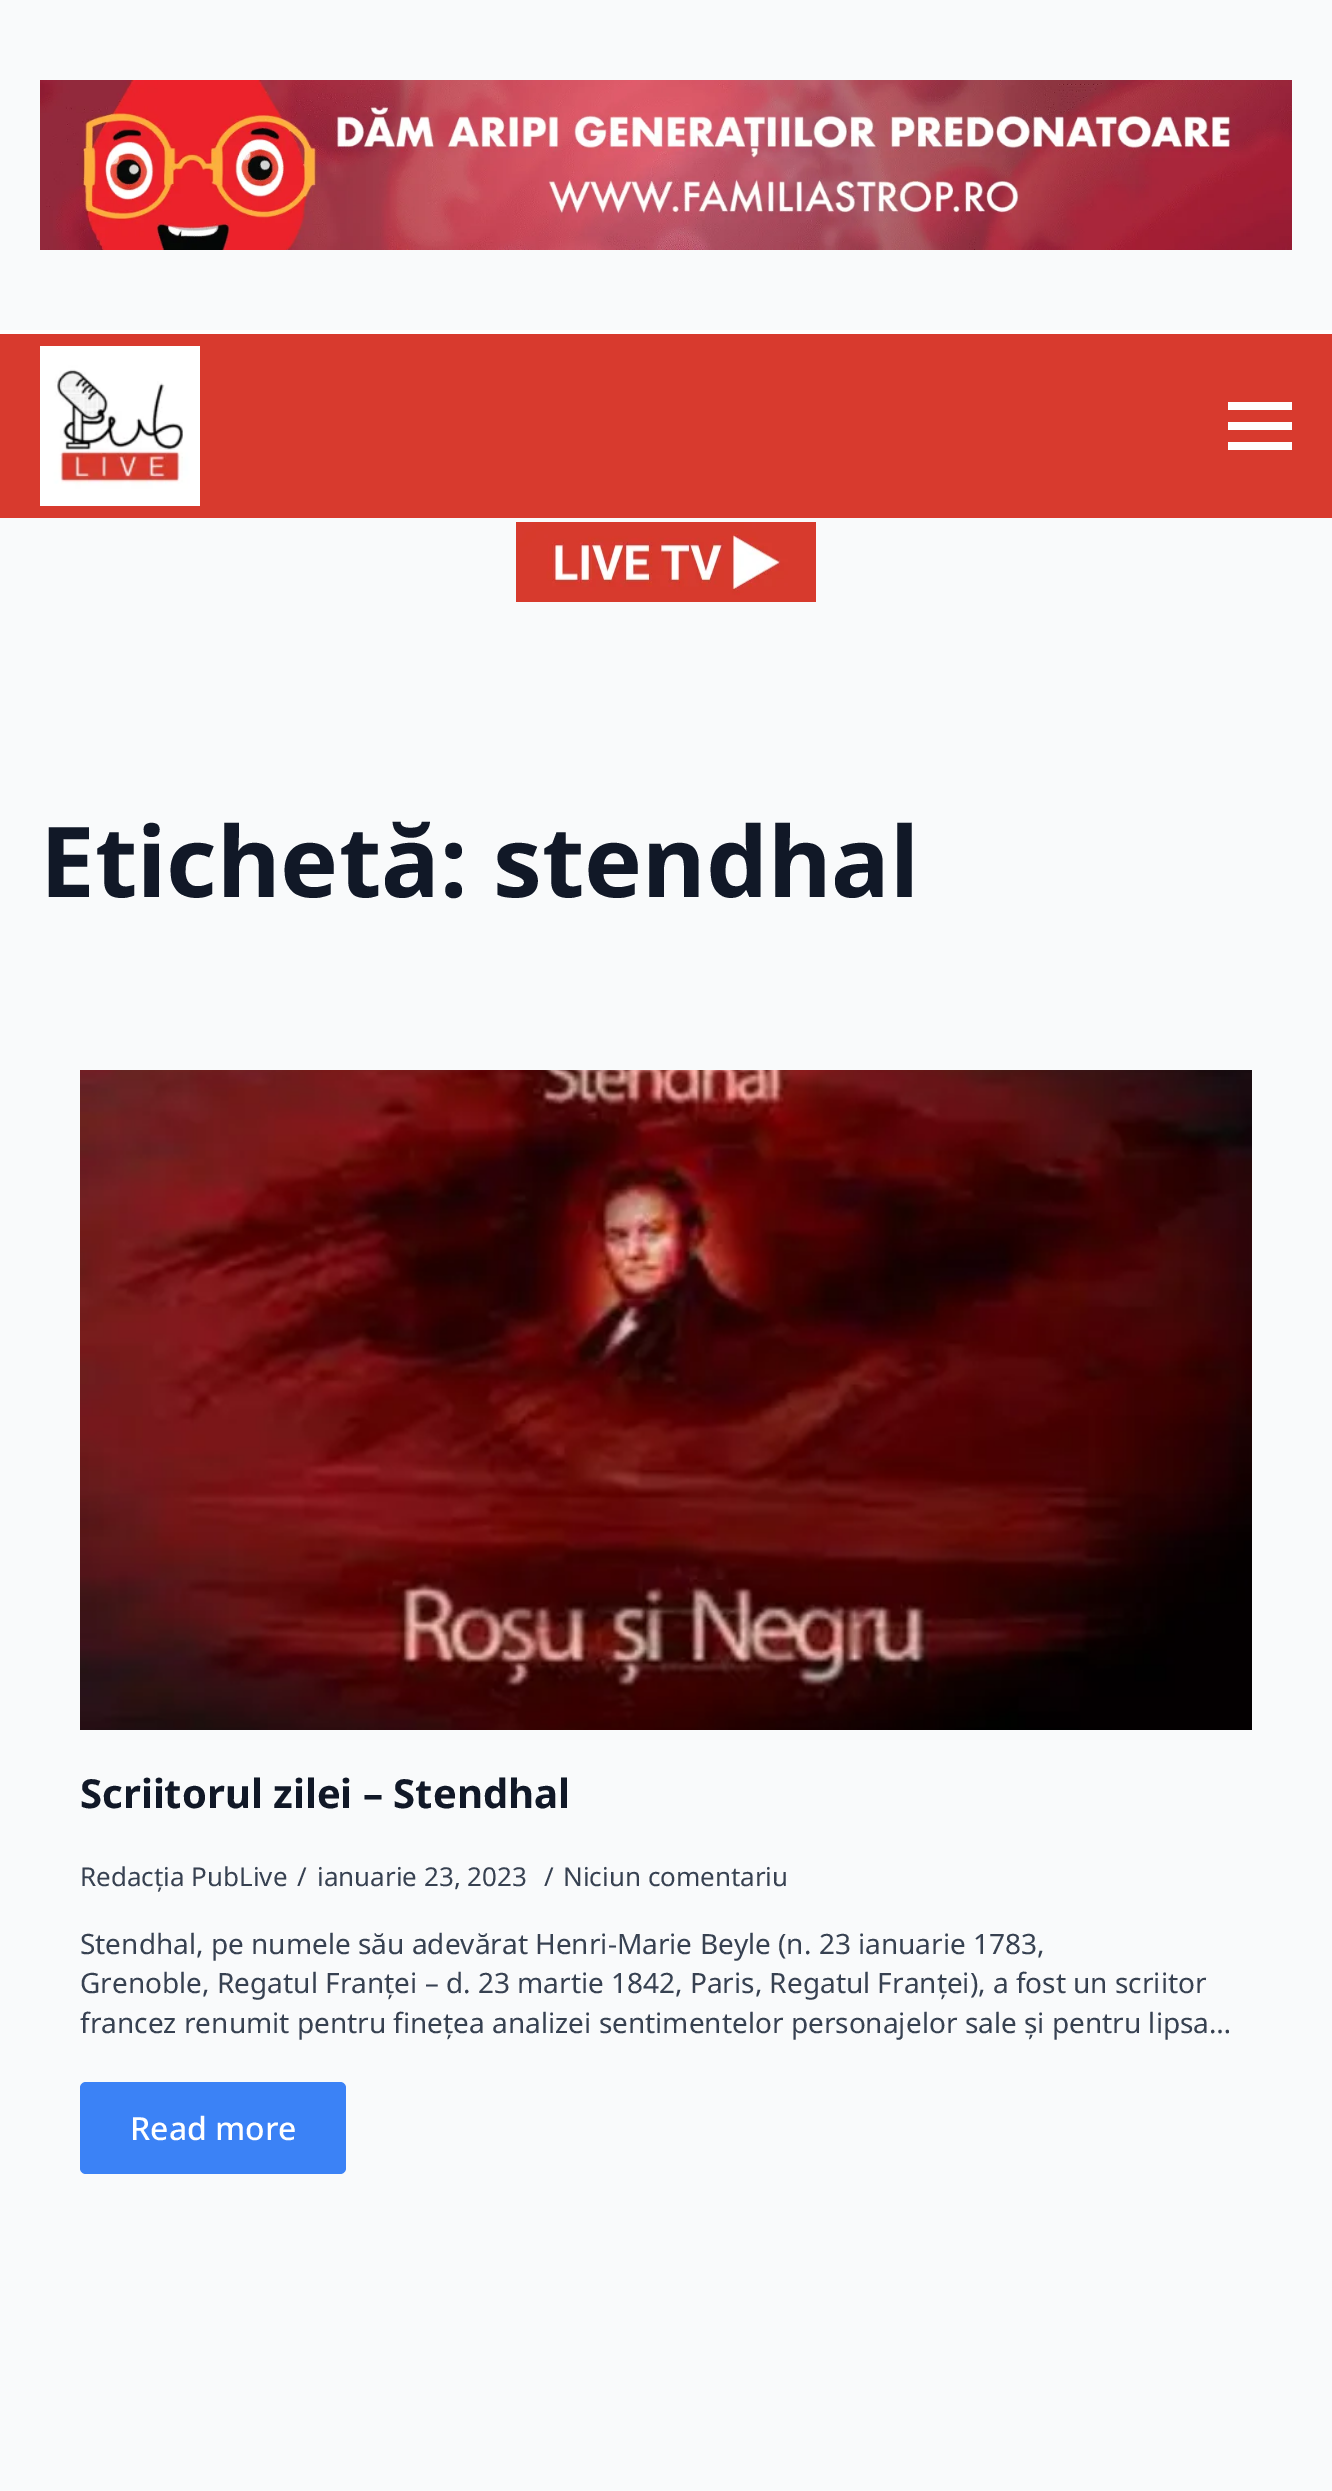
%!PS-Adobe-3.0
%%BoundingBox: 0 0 1332 2491
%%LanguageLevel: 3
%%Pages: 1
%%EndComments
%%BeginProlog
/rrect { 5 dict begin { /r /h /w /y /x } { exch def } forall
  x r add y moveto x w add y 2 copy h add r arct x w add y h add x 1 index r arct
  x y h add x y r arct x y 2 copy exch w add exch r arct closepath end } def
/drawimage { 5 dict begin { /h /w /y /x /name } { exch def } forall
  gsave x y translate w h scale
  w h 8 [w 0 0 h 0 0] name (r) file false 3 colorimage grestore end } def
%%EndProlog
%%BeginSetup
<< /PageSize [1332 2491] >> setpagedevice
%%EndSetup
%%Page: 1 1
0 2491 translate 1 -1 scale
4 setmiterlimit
0.976 0.98 0.984 setrgbcolor
0 0 1332 2491 rectfill
(images/1.raw) 40 80 1252 170 drawimage
0.847 0.227 0.18 setrgbcolor
0 334 1332 184 rectfill
1 setgray
0 330 1332 4 rectfill
(images/2.raw) 40 346 160 160 drawimage
1228 422 64 8 rectfill
1228 402 64 8 rectfill
1228 442 64 8 rectfill
(images/3.raw) 516 522 300 80 drawimage
(images/4.raw) 80 1070 1172 660 drawimage
0.231 0.51 0.965 setrgbcolor
80 2082 266 92 6 rrect fill
/NotoSans-Bold [97.75 0 0 -97.75 0 0] selectfont
0.067 0.094 0.153 setrgbcolor
40 897 moveto (Etichetă: stendhal) show
/NotoSans-Bold [40 0 0 -40 0 0] selectfont
80 1808 moveto (Scriitorul zilei – Stendhal) show
/NotoSans-Regular [26 0 0 -26 0 0] selectfont
0.216 0.255 0.318 setrgbcolor
80 1886 moveto (Redacția PubLive) show
297 1886 moveto (/) show
317 1886 moveto (ianuarie 23, 2023) show
544 1886 moveto (/) show
563 1886 moveto (Niciun comentariu) show
/NotoSans-Regular [28 0 0 -28 0 0] selectfont
80 1954 moveto (Stendhal, pe numele său adevărat Henri-Marie Beyle \(n. 23 ianuarie 1783,) show
80 1993 moveto (Grenoble, Regatul Franței – d. 23 martie 1842, Paris, Regatul Franței\), a fost un scriitor) show
80 2033 moveto (francez renumit pentru finețea analizei sentimentelor personajelor sale și pentru lipsa…) show
/NotoSans-Medium [32 0 0 -32 0 0] selectfont
1 setgray
130 2140 moveto (Read more) show
showpage
%%EOF
